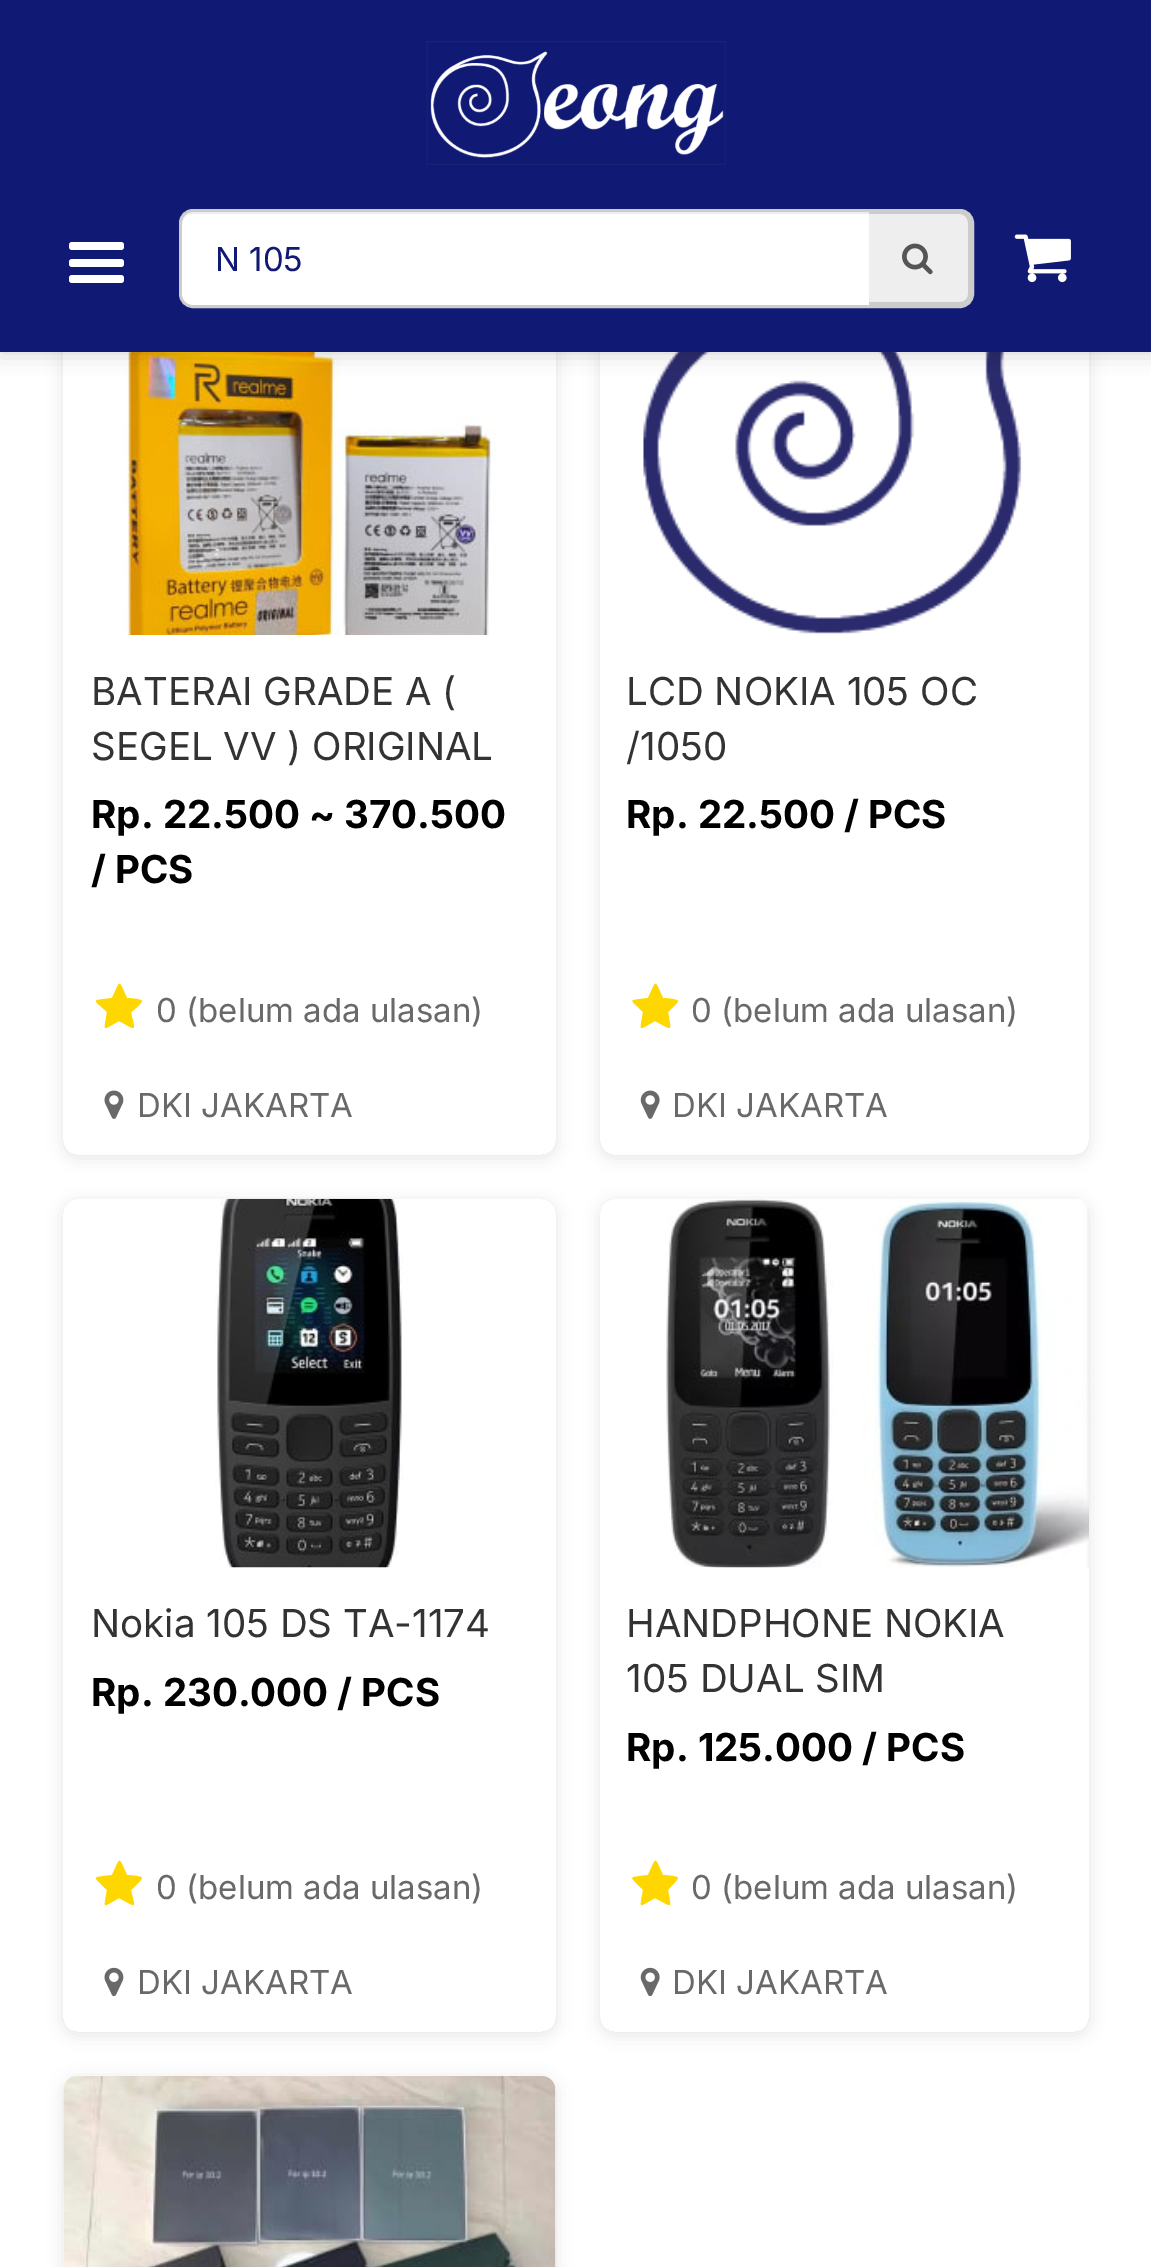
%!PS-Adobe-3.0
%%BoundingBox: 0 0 1151 2267
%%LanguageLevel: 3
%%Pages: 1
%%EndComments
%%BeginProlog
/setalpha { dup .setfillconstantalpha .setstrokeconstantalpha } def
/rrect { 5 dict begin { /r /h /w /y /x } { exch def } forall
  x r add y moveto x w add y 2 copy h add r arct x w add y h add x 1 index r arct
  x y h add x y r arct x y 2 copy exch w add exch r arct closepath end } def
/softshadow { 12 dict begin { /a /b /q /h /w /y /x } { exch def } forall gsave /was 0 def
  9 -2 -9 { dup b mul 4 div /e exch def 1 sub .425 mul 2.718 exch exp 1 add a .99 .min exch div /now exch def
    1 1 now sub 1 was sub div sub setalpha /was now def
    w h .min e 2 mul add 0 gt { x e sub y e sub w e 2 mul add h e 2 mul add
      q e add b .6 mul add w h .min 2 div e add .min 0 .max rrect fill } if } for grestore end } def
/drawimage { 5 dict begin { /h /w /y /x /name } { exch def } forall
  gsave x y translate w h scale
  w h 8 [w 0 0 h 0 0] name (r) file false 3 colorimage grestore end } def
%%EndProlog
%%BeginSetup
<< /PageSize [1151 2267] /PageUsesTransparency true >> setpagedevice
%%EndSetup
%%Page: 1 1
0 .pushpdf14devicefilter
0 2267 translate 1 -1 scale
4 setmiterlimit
1 setgray
0 0 1151 2267 rectfill
gsave
newpath 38 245 moveto 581 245 lineto 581 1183 lineto 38 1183 lineto closepath 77 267 moveto 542 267 lineto 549.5 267 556 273.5 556 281 curveto 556 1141 lineto 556 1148.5 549.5 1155 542 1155 curveto 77 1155 lineto 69.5 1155 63 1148.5 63 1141 curveto 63 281 lineto 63 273.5 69.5 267 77 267 curveto closepath eoclip newpath
0.192 0.208 0.231 setrgbcolor
63 270 493 888 14 8 0.12 softshadow
grestore
(images/4.raw) 69 352 470 283 drawimage
gsave
newpath 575 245 moveto 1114 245 lineto 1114 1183 lineto 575 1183 lineto closepath 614 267 moveto 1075 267 lineto 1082.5 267 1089 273.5 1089 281 curveto 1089 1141 lineto 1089 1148.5 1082.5 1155 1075 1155 curveto 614 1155 lineto 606.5 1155 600 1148.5 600 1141 curveto 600 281 lineto 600 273.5 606.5 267 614 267 curveto closepath eoclip newpath
0.192 0.208 0.231 setrgbcolor
600 270 489 888 14 8 0.12 softshadow
grestore
(images/6.raw) 643 352 379 282 drawimage
0 setgray
0 0 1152 352 0 11 0.2 softshadow
0.063 0.098 0.455 setrgbcolor
0 0 1151 352 rectfill
(images/1.raw) 426 41 300 124 drawimage
1 setgray
69 242 55 8 3 rrect fill
69 259 55 8 3 rrect fill
69 275 55 8 3 rrect fill
0.8 setgray
3 setlinewidth
180.5 210.5 792 96 12.5 rrect stroke
1 setgray
newpath 193 212 moveto 869 212 lineto 869 305 lineto 193 305 lineto 187 305 182 300 182 294 curveto 182 223 lineto 182 217 187 212 193 212 curveto closepath fill
0.07 setalpha
0 setgray
newpath 192 214 moveto 186 214 182 219 182 226 curveto 182 223 lineto 182 217 187 212 193 212 curveto 869 212 lineto 869 214 lineto closepath fill
1 setalpha
0.933 setgray
newpath 869 212 moveto 960 212 lineto 966 212 971 217 971 223 curveto 971 294 lineto 971 300 966 305 960 305 curveto 869 305 lineto closepath fill
0.8 setgray
newpath 869 212 moveto 960 212 lineto 966 212 971 217 971 223 curveto 971 294 lineto 971 300 966 305 960 305 curveto 869 305 lineto closepath 869 214 moveto 960 214 lineto 964 214 968 218 968 223 curveto 968 294 lineto 968 299 964 302 960 302 curveto 869 302 lineto closepath eofill
(images/2.raw) 902 243 31 32 drawimage
(images/3.raw) 1014 234 57 49 drawimage
1 0.843 0 setrgbcolor
newpath 142 1001 moveto 142 1003 133 1011 131 1012 curveto 135 1032 138 1031 119 1021 curveto 101 1031 104 1032 107 1012 curveto 92 998 91 1001 112 998 curveto 121 979 118 979 127 998 curveto 129 998 142 999 142 1001 curveto closepath fill
(images/5.raw) 104 1090 20 29 drawimage
newpath 678 1001 moveto 678 1003 669 1011 668 1012 curveto 671 1032 674 1031 655 1021 curveto 637 1031 640 1032 643 1012 curveto 629 998 627 1001 648 998 curveto 657 979 654 979 663 998 curveto 665 998 678 999 678 1001 curveto closepath fill
(images/7.raw) 640 1090 20 29 drawimage
gsave
newpath 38 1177 moveto 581 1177 lineto 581 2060 lineto 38 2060 lineto closepath 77 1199 moveto 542 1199 lineto 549.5 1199 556 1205.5 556 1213 curveto 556 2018 lineto 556 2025.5 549.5 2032 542 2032 curveto 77 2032 lineto 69.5 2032 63 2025.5 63 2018 curveto 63 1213 lineto 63 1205.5 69.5 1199 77 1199 curveto closepath eoclip newpath
0.192 0.208 0.231 setrgbcolor
63 1202 493 833 14 8 0.12 softshadow
grestore
(images/8.raw) 215 1198 188 370 drawimage
newpath 142 1878 moveto 142 1880 133 1888 131 1890 curveto 135 1909 138 1908 119 1898 curveto 101 1908 104 1909 107 1890 curveto 92 1875 91 1878 112 1875 curveto 121 1856 118 1856 127 1875 curveto 129 1875 142 1876 142 1878 curveto closepath fill
(images/9.raw) 104 1967 20 30 drawimage
gsave
newpath 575 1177 moveto 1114 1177 lineto 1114 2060 lineto 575 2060 lineto closepath 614 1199 moveto 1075 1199 lineto 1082.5 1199 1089 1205.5 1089 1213 curveto 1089 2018 lineto 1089 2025.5 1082.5 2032 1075 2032 curveto 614 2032 lineto 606.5 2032 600 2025.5 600 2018 curveto 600 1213 lineto 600 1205.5 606.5 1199 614 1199 curveto closepath eoclip newpath
0.192 0.208 0.231 setrgbcolor
600 1202 489 833 14 8 0.12 softshadow
grestore
(images/10.raw) 666 1199 423 369 drawimage
newpath 678 1878 moveto 678 1880 669 1888 668 1890 curveto 671 1909 674 1908 655 1898 curveto 637 1908 640 1909 643 1890 curveto 629 1875 627 1878 648 1875 curveto 657 1856 654 1856 663 1875 curveto 665 1875 678 1876 678 1878 curveto closepath fill
(images/11.raw) 640 1967 20 30 drawimage
0.192 0.208 0.231 setrgbcolor
63 2079 493 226 14 8 0.12 softshadow
(images/12.raw) 63 2076 493 191 drawimage
/Inter-Regular [33 0 0 -33 0 0] selectfont
0.063 0.098 0.455 setrgbcolor
215 271 moveto (N 105) show
/Inter-Regular [38.5 0 0 -38.5 0 0] selectfont
0.2 setgray
91 705 moveto (BATERAI GRADE A \() show
91 760 moveto (SEGEL VV \) ORIGINAL) show
/Inter-Bold [38.5 0 0 -38.5 0 0] selectfont
0 setgray
91 828 moveto (Rp. 22.500 ~ 370.500) show
91 883 moveto (/ PCS) show
/Inter-Regular [33 0 0 -33 0 0] selectfont
0.412 setgray
156 1022 moveto (0 \(belum ada ulasan\)) show
137 1117 moveto (DKI JAKARTA) show
/Inter-Regular [38.5 0 0 -38.5 0 0] selectfont
0.2 setgray
626 705 moveto (LCD NOKIA 105 OC) show
gsave
627 663 435 110 rectclip
626 760 moveto (/1050) show
grestore
/Inter-Bold [38.5 0 0 -38.5 0 0] selectfont
0 setgray
626 828 moveto (Rp. 22.500 / PCS) show
/Inter-Regular [33 0 0 -33 0 0] selectfont
0.412 setgray
691 1022 moveto (0 \(belum ada ulasan\)) show
672 1117 moveto (DKI JAKARTA) show
/Inter-Regular [38.5 0 0 -38.5 0 0] selectfont
0.2 setgray
91 1637 moveto (Nokia 105 DS TA-1174) show
/Inter-Bold [38.5 0 0 -38.5 0 0] selectfont
0 setgray
91 1706 moveto (Rp. 230.000 / PCS) show
/Inter-Regular [33 0 0 -33 0 0] selectfont
0.412 setgray
156 1899 moveto (0 \(belum ada ulasan\)) show
137 1994 moveto (DKI JAKARTA) show
/Inter-Regular [38.5 0 0 -38.5 0 0] selectfont
0.2 setgray
626 1637 moveto (HANDPHONE NOKIA) show
626 1692 moveto (105 DUAL SIM) show
/Inter-Bold [38.5 0 0 -38.5 0 0] selectfont
0 setgray
626 1761 moveto (Rp. 125.000 / PCS) show
/Inter-Regular [33 0 0 -33 0 0] selectfont
0.412 setgray
691 1899 moveto (0 \(belum ada ulasan\)) show
672 1994 moveto (DKI JAKARTA) show
.poppdf14devicefilter showpage
%%EOF
